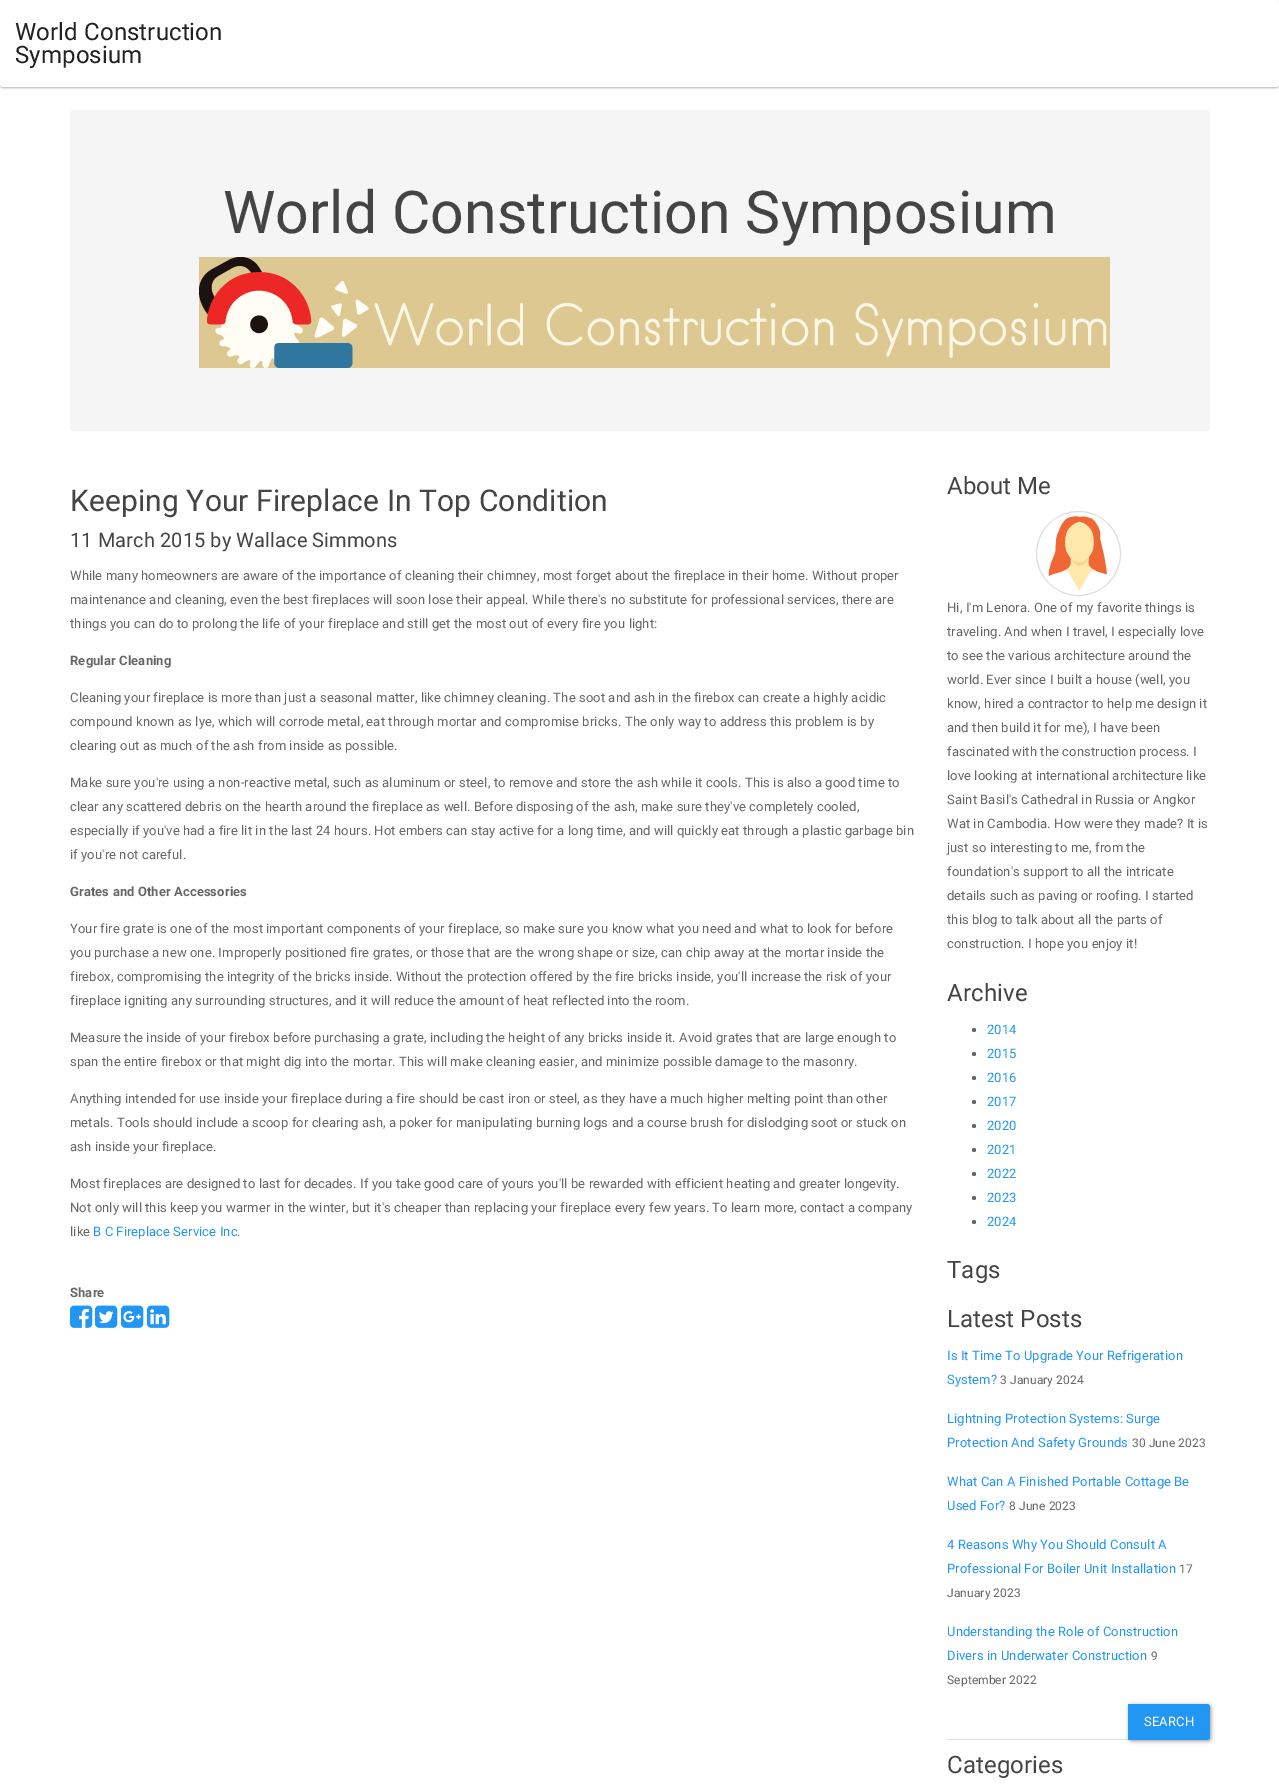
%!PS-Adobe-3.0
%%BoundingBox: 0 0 1279 1792
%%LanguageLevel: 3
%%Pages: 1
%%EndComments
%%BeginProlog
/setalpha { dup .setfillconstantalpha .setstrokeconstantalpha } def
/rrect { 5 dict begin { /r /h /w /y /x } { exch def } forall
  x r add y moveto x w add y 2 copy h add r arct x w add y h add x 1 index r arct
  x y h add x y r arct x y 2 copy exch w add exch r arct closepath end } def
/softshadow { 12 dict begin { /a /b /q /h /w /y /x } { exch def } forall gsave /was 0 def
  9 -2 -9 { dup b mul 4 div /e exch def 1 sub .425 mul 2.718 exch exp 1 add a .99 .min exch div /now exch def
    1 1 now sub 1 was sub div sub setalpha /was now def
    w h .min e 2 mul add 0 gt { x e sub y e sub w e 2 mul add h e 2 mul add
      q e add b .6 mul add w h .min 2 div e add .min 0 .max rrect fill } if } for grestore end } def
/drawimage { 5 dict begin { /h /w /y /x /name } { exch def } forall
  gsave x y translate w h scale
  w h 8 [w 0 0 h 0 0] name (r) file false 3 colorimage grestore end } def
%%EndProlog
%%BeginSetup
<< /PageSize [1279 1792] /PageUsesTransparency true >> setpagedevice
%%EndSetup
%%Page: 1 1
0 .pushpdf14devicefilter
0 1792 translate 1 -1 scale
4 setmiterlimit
1 setgray
0 0 1279 1792 rectfill
0 setgray
0 1 1279 87 3 1 0.3 softshadow
1 setgray
0 0 1279 87 3 rrect fill
0.961 setgray
70 110 1140 321 3 rrect fill
(images/1.raw) 199 257 911 111 drawimage
(images/2.raw) 70 1305 23 23 drawimage
(images/3.raw) 95 1305 23 23 drawimage
(images/4.raw) 121 1305 23 23 drawimage
(images/5.raw) 147 1305 23 23 drawimage
0.867 setgray
newpath 1078.5 553.5 42 0 360 arc closepath stroke
(images/6.raw) 1048 516 59 75 drawimage
0.4 setgray
newpath 974 1030 2 0 360 arc closepath fill
newpath 974 1054 2 0 360 arc closepath fill
newpath 974 1078 2 0 360 arc closepath fill
newpath 974 1102 2 0 360 arc closepath fill
newpath 974 1126 2 0 360 arc closepath fill
newpath 974 1150 2 0 360 arc closepath fill
newpath 974 1174 2 0 360 arc closepath fill
newpath 974 1198 2 0 360 arc closepath fill
newpath 974 1222 2 0 360 arc closepath fill
0.867 setgray
947 1739 182 1 rectfill
0 setgray
1129 1705 82 36 3 2 0.4 softshadow
0.129 0.588 0.953 setrgbcolor
newpath 1128 1704 moveto 1207 1704 lineto 1208.5 1704 1210 1705.5 1210 1707 curveto 1210 1737 lineto 1210 1738.5 1208.5 1740 1207 1740 curveto 1128 1740 lineto closepath fill
/Roboto-Regular [24 0 0 -24 0 0] selectfont
0.129 setgray
15 40 moveto 0.1 0 (World Construction) ashow
15 63 moveto 0.1 0 (Symposium) ashow
/Roboto-Regular [59 0 0 -59 0 0] selectfont
0.267 setgray
223 233 moveto 0.1 0 (World Construction Symposium) ashow
/Roboto-Regular [30 0 0 -30 0 0] selectfont
70 511 moveto 0.1 0 (Keeping Your Fireplace In Top Condition) ashow
/Roboto-Regular [20 0 0 -20 0 0] selectfont
70 547 moveto 0.1 0 (11 March 2015 by Wallace Simmons) ashow
/Roboto-Regular [13 0 0 -13 0 0] selectfont
0.4 setgray
70 580 moveto 0.1 0 (While many homeowners are aware of the importance of cleaning their chimney, most forget about the fireplace in their home. Without proper) ashow
70 604 moveto 0.1 0 (maintenance and cleaning, even the best fireplaces will soon lose their appeal. While there's no substitute for professional services, there are) ashow
70 628 moveto 0.1 0 (things you can do to prolong the life of your fireplace and still get the most out of every fire you light:) ashow
/Roboto-Bold [13 0 0 -13 0 0] selectfont
70 665 moveto 0.1 0 (Regular Cleaning) ashow
/Roboto-Regular [13 0 0 -13 0 0] selectfont
70 702 moveto 0.1 0 (Cleaning your fireplace is more than just a seasonal matter, like chimney cleaning. The soot and ash in the firebox can create a highly acidic) ashow
70 726 moveto 0.1 0 (compound known as lye, which will corrode metal, eat through mortar and compromise bricks. The only way to address this problem is by) ashow
70 750 moveto 0.1 0 (clearing out as much of the ash from inside as possible.) ashow
70 787 moveto 0.1 0 (Make sure you're using a non-reactive metal, such as aluminum or steel, to remove and store the ash while it cools. This is also a good time to) ashow
70 811 moveto 0.1 0 (clear any scattered debris on the hearth around the fireplace as well. Before disposing of the ash, make sure they've completely cooled,) ashow
70 835 moveto 0.1 0 (especially if you've had a fire lit in the last 24 hours. Hot embers can stay active for a long time, and will quickly eat through a plastic garbage bin) ashow
70 859 moveto 0.1 0 (if you're not careful.) ashow
/Roboto-Bold [13 0 0 -13 0 0] selectfont
70 896 moveto 0.1 0 (Grates and Other Accessories) ashow
/Roboto-Regular [13 0 0 -13 0 0] selectfont
70 933 moveto 0.1 0 (Your fire grate is one of the most important components of your fireplace, so make sure you know what you need and what to look for before) ashow
70 957 moveto 0.1 0 (you purchase a new one. Improperly positioned fire grates, or those that are the wrong shape or size, can chip away at the mortar inside the) ashow
70 981 moveto 0.1 0 (firebox, compromising the integrity of the bricks inside. Without the protection offered by the fire bricks inside, you'll increase the risk of your) ashow
70 1005 moveto 0.1 0 (fireplace igniting any surrounding structures, and it will reduce the amount of heat reflected into the room.) ashow
70 1042 moveto 0.1 0 (Measure the inside of your firebox before purchasing a grate, including the height of any bricks inside it. Avoid grates that are large enough to) ashow
70 1066 moveto 0.1 0 (span the entire firebox or that might dig into the mortar. This will make cleaning easier, and minimize possible damage to the masonry.) ashow
70 1103 moveto 0.1 0 (Anything intended for use inside your fireplace during a fire should be cast iron or steel, as they have a much higher melting point than other) ashow
70 1127 moveto 0.1 0 (metals. Tools should include a scoop for clearing ash, a poker for manipulating burning logs and a course brush for dislodging soot or stuck on) ashow
70 1151 moveto 0.1 0 (ash inside your fireplace.) ashow
70 1188 moveto 0.1 0 (Most fireplaces are designed to last for decades. If you take good care of yours you'll be rewarded with efficient heating and greater longevity.) ashow
70 1212 moveto 0.1 0 (Not only will this keep you warmer in the winter, but it's cheaper than replacing your fireplace every few years. To learn more, contact a company) ashow
70 1236 moveto 0.1 0 (like) ashow
0.129 0.588 0.953 setrgbcolor
93 1236 moveto 0.1 0 (B C Fireplace Service Inc.) ashow
/Roboto-Bold [13 0 0 -13 0 0] selectfont
0.4 setgray
70 1297 moveto 0.1 0 (Share) ashow
/Roboto-Regular [24 0 0 -24 0 0] selectfont
0.267 setgray
947 494 moveto 0.1 0 (About Me) ashow
/Roboto-Regular [13 0 0 -13 0 0] selectfont
0.4 setgray
947 612 moveto 0.1 0 (Hi, I'm Lenora. One of my favorite things is) ashow
947 636 moveto 0.1 0 (traveling. And when I travel, I especially love) ashow
947 660 moveto 0.1 0 (to see the various architecture around the) ashow
947 684 moveto 0.1 0 (world. Ever since I built a house \(well, you) ashow
947 708 moveto 0.1 0 (know, hired a contractor to help me design it) ashow
947 732 moveto 0.1 0 (and then build it for me\), I have been) ashow
947 756 moveto 0.1 0 (fascinated with the construction process. I) ashow
947 780 moveto 0.1 0 (love looking at international architecture like) ashow
947 804 moveto 0.1 0 (Saint Basil's Cathedral in Russia or Angkor) ashow
947 828 moveto 0.1 0 (Wat in Cambodia. How were they made? It is) ashow
947 852 moveto 0.1 0 (just so interesting to me, from the) ashow
947 876 moveto 0.1 0 (foundation's support to all the intricate) ashow
947 900 moveto 0.1 0 (details such as paving or roofing. I started) ashow
947 924 moveto 0.1 0 (this blog to talk about all the parts of) ashow
947 948 moveto 0.1 0 (construction. I hope you enjoy it!) ashow
/Roboto-Regular [24 0 0 -24 0 0] selectfont
0.267 setgray
947 1001 moveto 0.1 0 (Archive) ashow
/Roboto-Regular [13 0 0 -13 0 0] selectfont
0.129 0.588 0.953 setrgbcolor
987 1034 moveto 0.1 0 (2014) ashow
987 1058 moveto 0.1 0 (2015) ashow
987 1082 moveto 0.1 0 (2016) ashow
987 1106 moveto 0.1 0 (2017) ashow
987 1130 moveto 0.1 0 (2020) ashow
987 1154 moveto 0.1 0 (2021) ashow
987 1178 moveto 0.1 0 (2022) ashow
987 1202 moveto 0.1 0 (2023) ashow
987 1226 moveto 0.1 0 (2024) ashow
/Roboto-Regular [24 0 0 -24 0 0] selectfont
0.267 setgray
947 1278 moveto 0.1 0 (Tags) ashow
947 1327 moveto 0.1 0 (Latest Posts) ashow
/Roboto-Regular [13 0 0 -13 0 0] selectfont
0.129 0.588 0.953 setrgbcolor
947 1360 moveto 0.1 0 (Is It Time To Upgrade Your Refrigeration) ashow
947 1384 moveto 0.1 0 (System?) ashow
/Roboto-Regular [12 0 0 -12 0 0] selectfont
0.4 setgray
1000 1384 moveto 0.1 0 (3 January 2024) ashow
/Roboto-Regular [13 0 0 -13 0 0] selectfont
0.129 0.588 0.953 setrgbcolor
947 1423 moveto 0.1 0 (Lightning Protection Systems: Surge) ashow
947 1447 moveto 0.1 0 (Protection And Safety Grounds) ashow
/Roboto-Regular [12 0 0 -12 0 0] selectfont
0.4 setgray
1132 1447 moveto 0.1 0 (30 June 2023) ashow
/Roboto-Regular [13 0 0 -13 0 0] selectfont
0.129 0.588 0.953 setrgbcolor
947 1486 moveto 0.1 0 (What Can A Finished Portable Cottage Be) ashow
947 1510 moveto 0.1 0 (Used For?) ashow
/Roboto-Regular [12 0 0 -12 0 0] selectfont
0.4 setgray
1009 1510 moveto 0.1 0 (8 June 2023) ashow
/Roboto-Regular [13 0 0 -13 0 0] selectfont
0.129 0.588 0.953 setrgbcolor
947 1549 moveto 0.1 0 (4 Reasons Why You Should Consult A) ashow
947 1573 moveto 0.1 0 (Professional For Boiler Unit Installation) ashow
/Roboto-Regular [12 0 0 -12 0 0] selectfont
0.4 setgray
1179 1573 moveto 0.1 0 (17) ashow
947 1597 moveto 0.1 0 (January 2023) ashow
/Roboto-Regular [13 0 0 -13 0 0] selectfont
0.129 0.588 0.953 setrgbcolor
947 1636 moveto 0.1 0 (Understanding the Role of Construction) ashow
947 1660 moveto 0.1 0 (Divers in Underwater Construction) ashow
/Roboto-Regular [12 0 0 -12 0 0] selectfont
0.4 setgray
1151 1660 moveto 0.1 0 (9) ashow
947 1684 moveto 0.1 0 (September 2022) ashow
/Roboto-Regular [13 0 0 -13 0 0] selectfont
1 setgray
1144 1726 moveto 0.1 0 (SEARCH) ashow
/Roboto-Regular [24 0 0 -24 0 0] selectfont
0.267 setgray
947 1773 moveto 0.1 0 (Categories) ashow
.poppdf14devicefilter showpage
%%EOF
